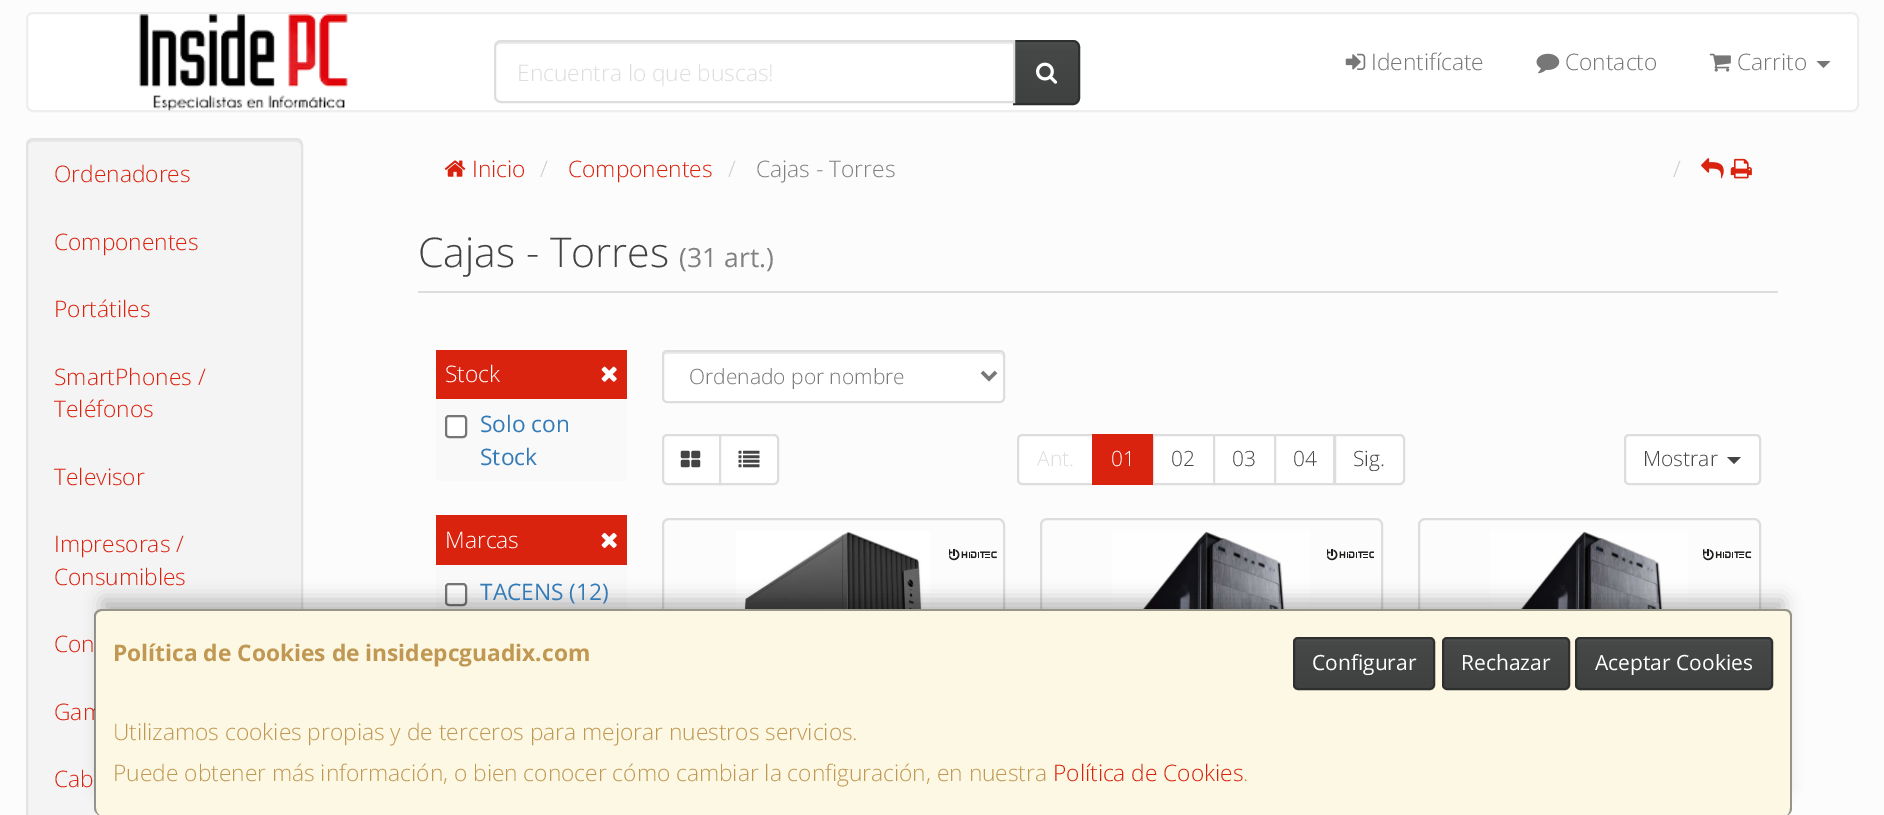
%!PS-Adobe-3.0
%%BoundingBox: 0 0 1884 815
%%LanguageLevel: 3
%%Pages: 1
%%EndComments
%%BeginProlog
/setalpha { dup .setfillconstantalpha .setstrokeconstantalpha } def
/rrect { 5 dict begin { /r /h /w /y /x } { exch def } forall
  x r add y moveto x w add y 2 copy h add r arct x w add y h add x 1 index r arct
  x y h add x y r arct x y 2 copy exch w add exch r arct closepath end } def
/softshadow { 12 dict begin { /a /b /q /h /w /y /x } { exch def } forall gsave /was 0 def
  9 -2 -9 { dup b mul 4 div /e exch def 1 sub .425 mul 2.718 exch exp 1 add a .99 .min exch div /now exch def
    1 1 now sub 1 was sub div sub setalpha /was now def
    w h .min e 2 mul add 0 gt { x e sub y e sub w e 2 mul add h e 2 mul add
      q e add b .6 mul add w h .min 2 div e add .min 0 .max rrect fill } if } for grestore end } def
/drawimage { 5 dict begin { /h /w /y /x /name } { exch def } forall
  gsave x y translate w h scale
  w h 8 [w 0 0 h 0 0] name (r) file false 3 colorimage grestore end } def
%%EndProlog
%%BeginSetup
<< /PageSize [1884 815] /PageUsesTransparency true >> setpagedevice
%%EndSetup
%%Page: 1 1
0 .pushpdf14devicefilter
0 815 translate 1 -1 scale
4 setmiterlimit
0.988 setgray
0 0 1884 815 rectfill
1 setgray
27 13 1831 98 6 rrect gsave fill grestore
0.933 setgray
2 setlinewidth
stroke
(images/1.raw) 139 14 209 97 drawimage
gsave newpath 1015 42 moveto 1078 42 lineto 1078 103 lineto 1015 103 lineto closepath clip newpath
<< /ShadingType 2 /ColorSpace /DeviceRGB /Coords [1047 42 1047 103] /Extend [true true] /Function << /FunctionType 3 /Domain [0 1] /Functions [<< /FunctionType 2 /Domain [0 1] /C0 [0.31 0.318 0.318] /C1 [0.278 0.286 0.286] /N 1 >> << /FunctionType 2 /Domain [0 1] /C0 [0.278 0.286 0.286] /C1 [0.247 0.255 0.255] /N 1 >>] /Bounds [0.06] /Encode [0 1 0 1] >> >> shfill grestore
0.18 0.184 0.184 setrgbcolor
newpath 1014 41 moveto 1073 41 lineto 1076.5 41 1079 43.5 1079 47 curveto 1079 98 lineto 1079 101.5 1076.5 104 1073 104 curveto 1014 104 lineto closepath stroke
1 setgray
newpath 501 40 moveto 1015 40 lineto 1015 103 lineto 501 103 lineto 497 103 494 100 494 96 curveto 494 47 lineto 494 43 497 40 501 40 curveto closepath fill
0.925 setgray
newpath 500 44 moveto 1013 44 lineto 1013 42 lineto 500 42 lineto 497 42 495 44 495 47 curveto 495 49 lineto 495 46 498 44 500 44 curveto closepath fill
0.867 setgray
newpath 501 41 moveto 1014 41 lineto 1014 102 lineto 501 102 lineto 497.5 102 495 99.5 495 96 curveto 495 47 lineto 495 43.5 497.5 41 501 41 curveto closepath stroke
(images/2.raw) 1036 62 22 22 drawimage
(images/3.raw) 1345 53 21 17 drawimage
(images/4.raw) 1536 53 24 21 drawimage
(images/5.raw) 1709 53 22 19 drawimage
0.467 setgray
newpath 1816.5 61 moveto 1830.5 61 lineto 1823.5 68 lineto closepath fill
0.957 setgray
26 138 277 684 7 rrect fill
0.91 setgray
newpath 33 142 moveto 296 142 lineto 299 142 301 144 301 147 curveto 301 145 lineto 301 142 299 140 296 140 curveto 33 140 lineto 30 140 28 142 28 145 curveto 28 147 lineto 28 144 30 142 33 142 curveto closepath fill
0.89 setgray
27 139 275 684 6 rrect stroke
(images/6.raw) 444 160 22 17 drawimage
(images/7.raw) 1701 158 23 21 drawimage
(images/8.raw) 1730 158 22 21 drawimage
0.867 setgray
418 291 1360 2 rectfill
0.851 0.137 0.059 setrgbcolor
436 350 191 49 rectfill
(images/9.raw) 601 366 16 16 drawimage
0.976 setgray
436 399 191 82 rectfill
1 setgray
446 416 20 21 3 rrect gsave fill grestore
0.463 setgray
stroke
0.851 0.137 0.059 setrgbcolor
436 515 191 50 rectfill
(images/10.raw) 601 532 16 16 drawimage
0.976 setgray
436 565 191 44 rectfill
1 setgray
446 584 20 21 3 rrect gsave fill grestore
0.463 setgray
stroke
1 setgray
662 350 343 53 5 rrect fill
0.925 setgray
newpath 667 354 moveto 999 354 lineto 1001 354 1003 355 1003 357 curveto 1003 356 lineto 1003 354 1001 352 999 352 curveto 667 352 lineto 665 352 663 354 663 356 curveto 663 357 lineto 663 355 665 354 667 354 curveto closepath fill
0.867 setgray
663 351 341 51 4 rrect stroke
0.467 setgray
3.5 setlinewidth
newpath 982 372 moveto 989 379 lineto 996 372 lineto stroke
1 setgray
newpath 667 435 moveto 720 435 lineto 720 484 lineto 667 484 lineto 665 484 663 482 663 480 curveto 663 439 lineto 663 437 665 435 667 435 curveto closepath gsave fill grestore
0.867 setgray
2 setlinewidth
stroke
(images/11.raw) 680 450 21 18 drawimage
1 setgray
newpath 720 435 moveto 774 435 lineto 776 435 778 437 778 439 curveto 778 480 lineto 778 482 776 484 774 484 curveto 720 484 lineto closepath gsave fill grestore
0.867 setgray
stroke
(images/12.raw) 738 450 22 18 drawimage
1 setgray
newpath 1022 435 moveto 1093 435 lineto 1093 484 lineto 1022 484 lineto 1020 484 1018 482 1018 480 curveto 1018 439 lineto 1018 437 1020 435 1022 435 curveto closepath gsave fill grestore
0.867 setgray
stroke
1 setgray
newpath 1153 435 moveto 1214 435 lineto 1214 484 lineto 1153 484 lineto closepath gsave fill grestore
0.867 setgray
stroke
0.851 0.137 0.059 setrgbcolor
1092 434 61 51 rectfill
1 setgray
newpath 1214 435 moveto 1275 435 lineto 1275 484 lineto 1214 484 lineto closepath gsave fill grestore
0.867 setgray
stroke
1 setgray
newpath 1275 435 moveto 1334 435 lineto 1334 484 lineto 1275 484 lineto closepath gsave fill grestore
0.867 setgray
stroke
1 setgray
newpath 1335 435 moveto 1400 435 lineto 1402 435 1404 437 1404 439 curveto 1404 480 lineto 1404 482 1402 484 1400 484 curveto 1335 484 lineto closepath gsave fill grestore
0.867 setgray
stroke
1 setgray
1625 435 135 49 4 rrect gsave fill grestore
0.867 setgray
stroke
0.267 setgray
newpath 1727 457 moveto 1741 457 lineto 1734 464 lineto closepath fill
0.867 setgray
663 519 341 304 6 rrect stroke
(images/13.raw) 736 531 194 78 drawimage
(images/14.raw) 949 549 48 12 drawimage
1041 519 341 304 6 rrect stroke
(images/15.raw) 1112 531 198 78 drawimage
(images/16.raw) 1327 549 47 12 drawimage
1419 519 341 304 6 rrect stroke
(images/15.raw) 1490 531 198 78 drawimage
(images/17.raw) 1703 549 49 12 drawimage
0 setgray
103 600 1680 189 0 9 0.25 softshadow
/OpenSans-Light [22.75 0 0 -22.75 0 0] selectfont
0.867 setgray
517 81 moveto (Encuentra lo que buscas!) show
0.467 setgray
1371 70 moveto (Identifícate) show
1565 70 moveto (Contacto) show
1737 70 moveto (Carrito) show
0.851 0.137 0.059 setrgbcolor
54 182 moveto (Ordenadores) show
54 250 moveto (Componentes) show
54 317 moveto (Portátiles) show
54 385 moveto (SmartPhones /) show
54 417 moveto (Teléfonos) show
54 485 moveto (Televisor) show
54 552 moveto (Impresoras /) show
54 585 moveto (Consumibles) show
54 652 moveto (Con) show
54 720 moveto (Gam) show
54 787 moveto (Cab) show
472 177 moveto (Inicio) show
0.8 setgray
540 177 moveto (/) show
0.851 0.137 0.059 setrgbcolor
568 177 moveto (Componentes) show
0.8 setgray
728 177 moveto (/) show
0.502 setgray
756 177 moveto (Cajas - Torres) show
0.8 setgray
1673 177 moveto (/) show
/OpenSans-Light [41 0 0 -41 0 0] selectfont
0.267 setgray
418 267 moveto (Cajas - Torres) show
/OpenSans-Regular [26.5 0 0 -26.5 0 0] selectfont
0.502 setgray
679 267 moveto (\(31 art.\)) show
/OpenSans-Light [22.75 0 0 -22.75 0 0] selectfont
1 setgray
445 382 moveto (Stock) show
/OpenSans-Regular [22.75 0 0 -22.75 0 0] selectfont
0.2 0.478 0.718 setrgbcolor
480 432 moveto (Solo con) show
480 465 moveto (Stock) show
/OpenSans-Light [22.75 0 0 -22.75 0 0] selectfont
1 setgray
445 548 moveto (Marcas) show
/OpenSans-Regular [22.75 0 0 -22.75 0 0] selectfont
0.2 0.478 0.718 setrgbcolor
480 600 moveto (TACENS \(12\)) show
/OpenSans-Light [21 0 0 -21 0 0] selectfont
0.467 setgray
689 384 moveto (Ordenado por nombre) show
0.867 setgray
1037 466 moveto (Ant.) show
1 setgray
1111 466 moveto (01) show
0.267 setgray
1171 466 moveto (02) show
1232 466 moveto (03) show
1293 466 moveto (04) show
1353 466 moveto (Sig.) show
1643 466 moveto (Mostrar) show
0.988 0.973 0.89 setrgbcolor
95 609 1697 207 7 rrect fill
0.4 setalpha
0 setgray
newpath 102 609 moveto 1785 609 lineto 1789 609 1792 612 1792 616 curveto 1792 808 lineto 1792 812 1789 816 1785 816 curveto 102 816 lineto 98 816 94 812 94 808 curveto 94 616 lineto 94 612 98 609 102 609 curveto closepath 102 611 moveto 1785 611 lineto 1788 611 1790 613 1790 616 curveto 1790 808 lineto 1790 812 1788 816 1785 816 curveto 102 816 lineto 99 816 96 812 96 808 curveto 96 616 lineto 96 613 99 611 102 611 curveto closepath eofill
/OpenSans-Bold [22.75 0 0 -22.75 0 0] selectfont
1 setalpha
0.753 0.596 0.325 setrgbcolor
113 661 moveto (Política de Cookies de insidepcguadix.com) show
gsave newpath 1295 639 moveto 1433 639 lineto 1433 688 lineto 1295 688 lineto closepath clip newpath
<< /ShadingType 2 /ColorSpace /DeviceRGB /Coords [1364 639 1364 688] /Extend [true true] /Function << /FunctionType 3 /Domain [0 1] /Functions [<< /FunctionType 2 /Domain [0 1] /C0 [0.31 0.318 0.318] /C1 [0.278 0.286 0.286] /N 1 >> << /FunctionType 2 /Domain [0 1] /C0 [0.278 0.286 0.286] /C1 [0.247 0.255 0.255] /N 1 >>] /Bounds [0.06] /Encode [0 1 0 1] >> >> shfill grestore
0.18 0.184 0.184 setrgbcolor
1294 638 140 51 4 rrect stroke
/OpenSans-Regular [21 0 0 -21 0 0] selectfont
1 setgray
1312 670 moveto (Configurar) show
gsave newpath 1444 639 moveto 1568 639 lineto 1568 688 lineto 1444 688 lineto closepath clip newpath
<< /ShadingType 2 /ColorSpace /DeviceRGB /Coords [1506 639 1506 688] /Extend [true true] /Function << /FunctionType 3 /Domain [0 1] /Functions [<< /FunctionType 2 /Domain [0 1] /C0 [0.31 0.318 0.318] /C1 [0.278 0.286 0.286] /N 1 >> << /FunctionType 2 /Domain [0 1] /C0 [0.278 0.286 0.286] /C1 [0.247 0.255 0.255] /N 1 >>] /Bounds [0.06] /Encode [0 1 0 1] >> >> shfill grestore
0.18 0.184 0.184 setrgbcolor
1443 638 126 51 4 rrect stroke
1 setgray
1461 670 moveto (Rechazar) show
gsave newpath 1577 639 moveto 1771 639 lineto 1771 688 lineto 1577 688 lineto closepath clip newpath
<< /ShadingType 2 /ColorSpace /DeviceRGB /Coords [1674 639 1674 688] /Extend [true true] /Function << /FunctionType 3 /Domain [0 1] /Functions [<< /FunctionType 2 /Domain [0 1] /C0 [0.31 0.318 0.318] /C1 [0.278 0.286 0.286] /N 1 >> << /FunctionType 2 /Domain [0 1] /C0 [0.278 0.286 0.286] /C1 [0.247 0.255 0.255] /N 1 >>] /Bounds [0.06] /Encode [0 1 0 1] >> >> shfill grestore
0.18 0.184 0.184 setrgbcolor
1576 638 196 51 4 rrect stroke
1 setgray
1595 670 moveto (Aceptar Cookies) show
/OpenSans-Light [22.75 0 0 -22.75 0 0] selectfont
0.753 0.596 0.325 setrgbcolor
113 740 moveto (Utilizamos cookies propias y de terceros para mejorar nuestros servicios.) show
113 781 moveto (Puede obtener más información, o bien conocer cómo cambiar la configuración, en nuestra) show
0.851 0.137 0.059 setrgbcolor
1053 781 moveto (Política de Cookies) show
0.753 0.596 0.325 setrgbcolor
1243 781 moveto (.) show
.poppdf14devicefilter showpage
%%EOF
